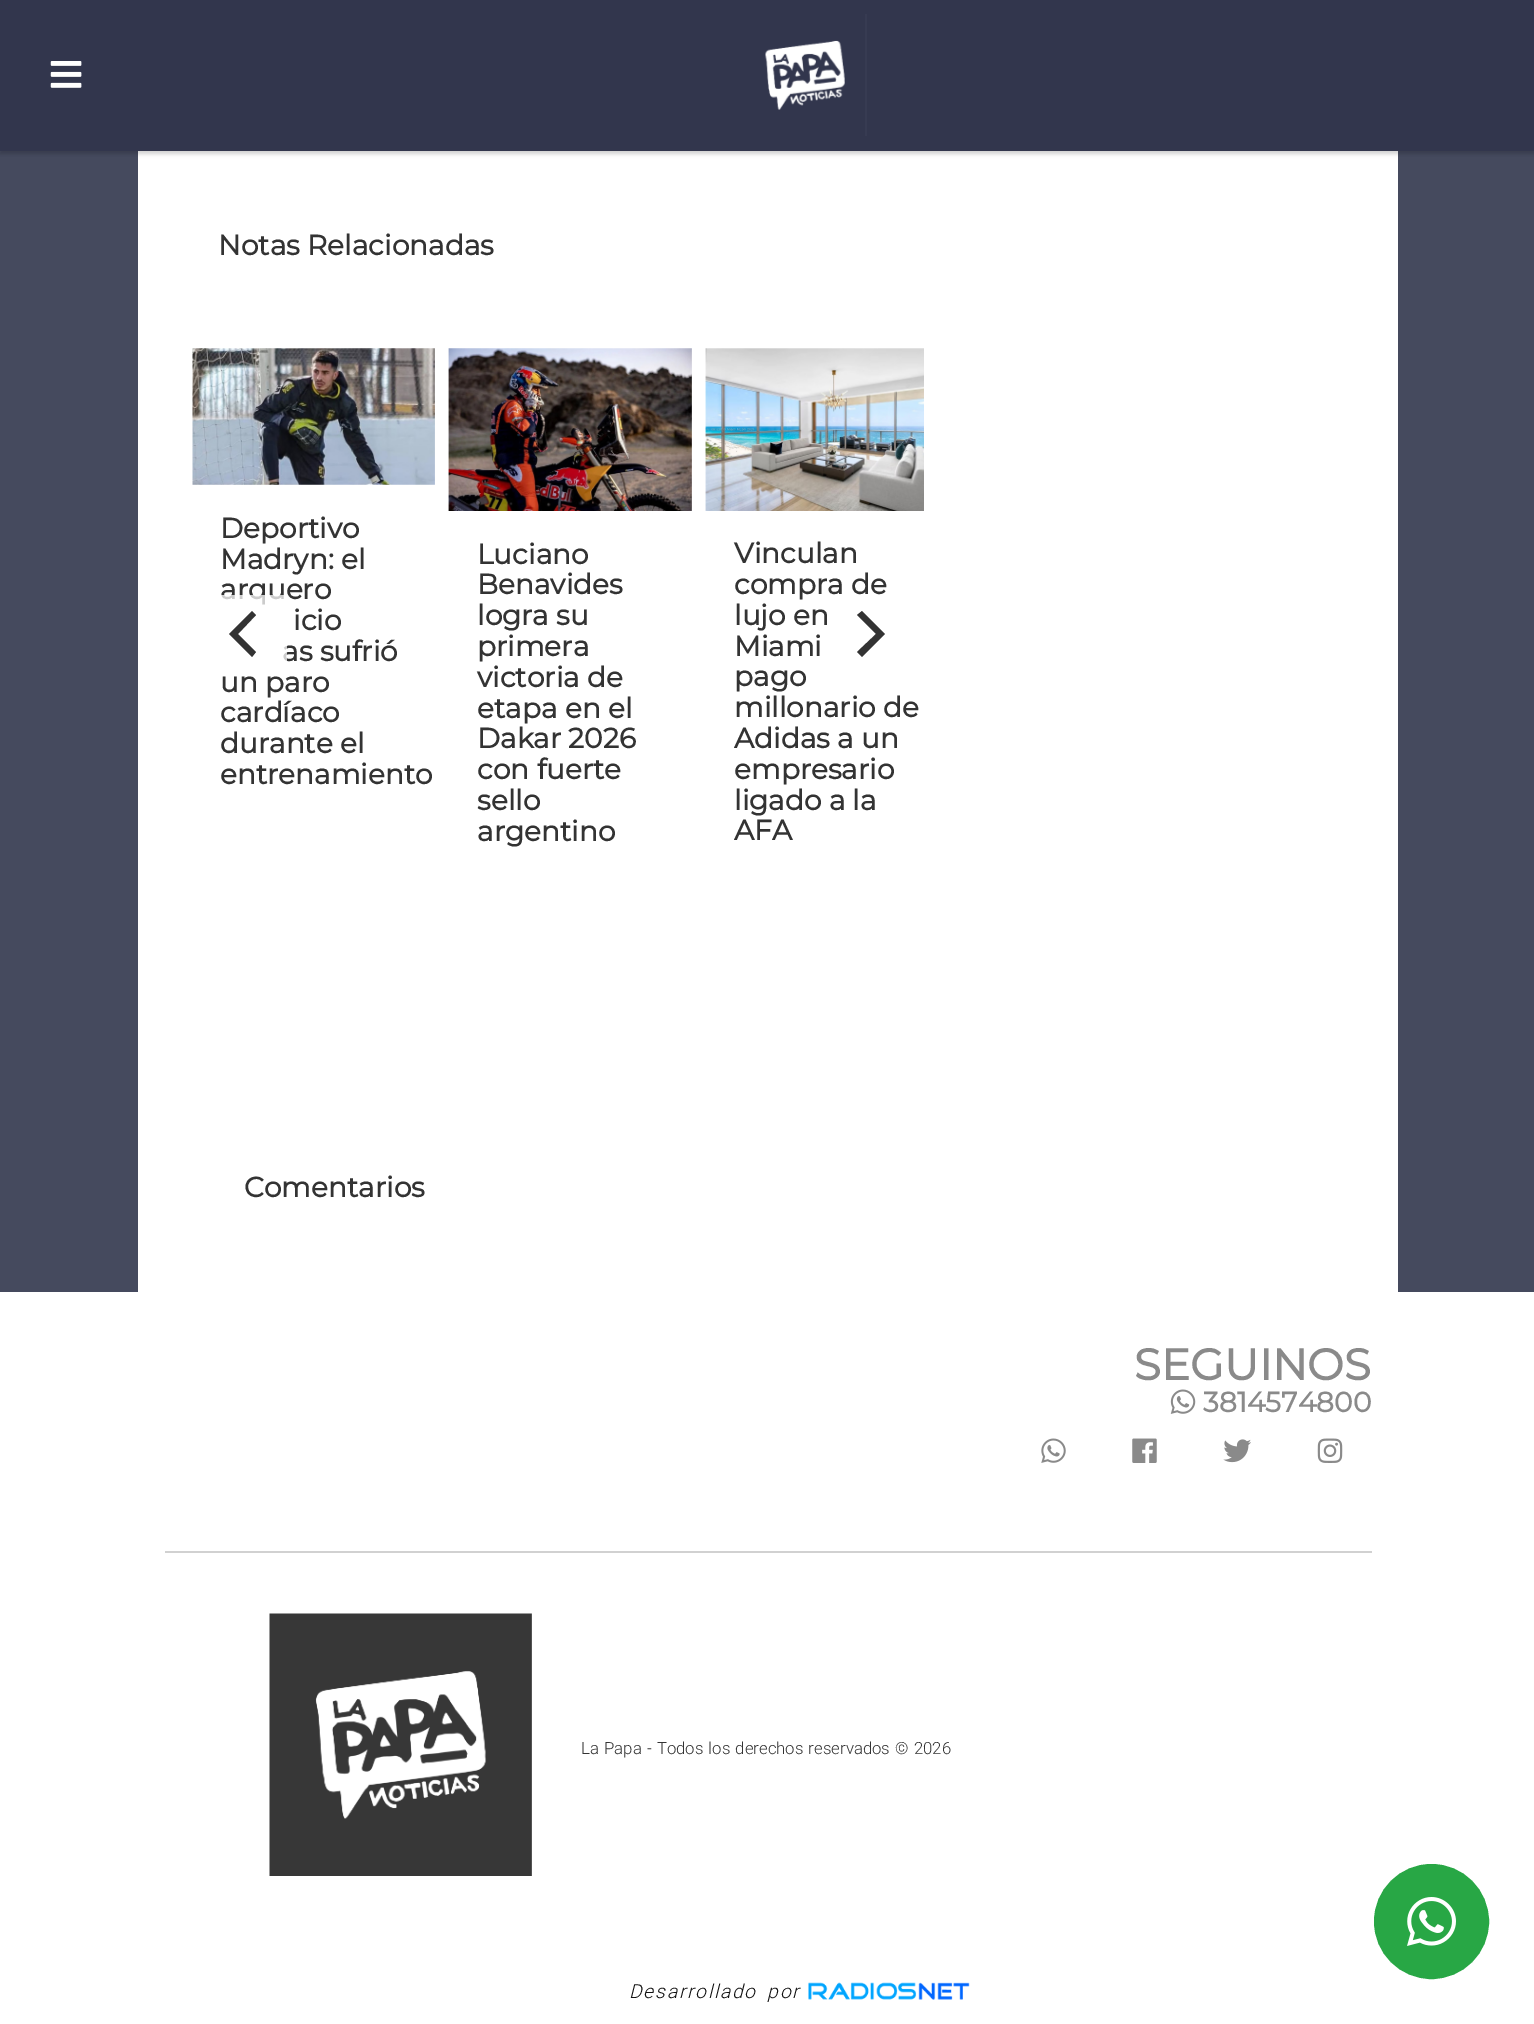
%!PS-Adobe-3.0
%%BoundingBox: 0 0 1534 2024
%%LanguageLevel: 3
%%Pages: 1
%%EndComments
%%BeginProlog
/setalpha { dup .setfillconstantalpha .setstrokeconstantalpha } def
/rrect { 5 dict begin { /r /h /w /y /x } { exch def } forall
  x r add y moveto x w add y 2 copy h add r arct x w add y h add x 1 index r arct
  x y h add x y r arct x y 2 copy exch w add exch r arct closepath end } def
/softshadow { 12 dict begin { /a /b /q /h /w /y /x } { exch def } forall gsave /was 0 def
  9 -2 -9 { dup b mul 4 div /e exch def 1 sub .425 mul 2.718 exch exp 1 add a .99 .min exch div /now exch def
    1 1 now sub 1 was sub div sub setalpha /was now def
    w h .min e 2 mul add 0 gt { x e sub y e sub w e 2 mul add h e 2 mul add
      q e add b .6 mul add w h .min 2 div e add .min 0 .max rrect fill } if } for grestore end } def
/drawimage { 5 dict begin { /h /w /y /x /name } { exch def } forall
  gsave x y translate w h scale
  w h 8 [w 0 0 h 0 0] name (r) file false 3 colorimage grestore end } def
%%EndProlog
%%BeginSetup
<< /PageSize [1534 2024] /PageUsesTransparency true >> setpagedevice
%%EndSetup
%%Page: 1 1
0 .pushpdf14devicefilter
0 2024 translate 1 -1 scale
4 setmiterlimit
0.271 0.29 0.369 setrgbcolor
0 0 1534 2024 rectfill
1 setgray
138 151 1260 1141 rectfill
0 setgray
0 4 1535 150 0 2 0.18 softshadow
0.196 0.212 0.302 setrgbcolor
0 0 1534 151 rectfill
(images/1.raw) 50 61 32 27 drawimage
(images/2.raw) 765 14 102 122 drawimage
(images/3.raw) 192 348 243 137 drawimage
(images/4.raw) 448 348 244 163 drawimage
(images/5.raw) 705 348 219 163 drawimage
0.2 setgray
newpath 885 634 moveto 862 611 lineto 857 615 lineto 876 634 lineto 857 652 lineto 862 657 lineto closepath fill
1 setgray
0 1292 1534 732 rectfill
(images/6.raw) 1170 1389 26 25 drawimage
(images/7.raw) 1041 1438 25 25 drawimage
(images/8.raw) 1132 1438 25 25 drawimage
(images/9.raw) 1223 1439 28 24 drawimage
(images/10.raw) 1317 1438 26 25 drawimage
0.82 setgray
165 1551 1207 2 rectfill
(images/11.raw) 269 1613 263 263 drawimage
0.157 0.655 0.271 setrgbcolor
newpath 1431.5 1921.5 56.5 0 360 arc closepath gsave fill grestore
2 setlinewidth
stroke
(images/12.raw) 1407 1897 49 49 drawimage
(images/13.raw) 808 1982 162 18 drawimage
/Montserrat-Bold [28 0 0 -28 0 0] selectfont
0.2 setgray
218 255 moveto (Notas Relacionadas) show
220 538 moveto (Deportivo) show
220 569 moveto (Madryn: el) show
220 599 moveto (arquero) show
293 630 moveto (icio) show
282 661 moveto (as sufrió) show
220 692 moveto (un paro) show
220 722 moveto (cardíaco) show
220 753 moveto (durante el) show
220 784 moveto (entrenamiento) show
477 564 moveto (Luciano) show
477 594 moveto (Benavides) show
477 625 moveto (logra su) show
477 656 moveto (primera) show
477 687 moveto (victoria de) show
477 718 moveto (etapa en el) show
477 748 moveto (Dakar 2026) show
477 779 moveto (con fuerte) show
477 810 moveto (sello) show
477 841 moveto (argentino) show
734 563 moveto (Vinculan) show
734 594 moveto (compra de) show
734 625 moveto (lujo en) show
734 656 moveto (Miami) show
734 686 moveto (pago) show
734 717 moveto (millonario de) show
734 748 moveto (Adidas a un) show
734 779 moveto (empresario) show
734 810 moveto (ligado a la) show
734 840 moveto (AFA) show
0.75 setalpha
1 setgray
221 595 66 66 rectfill
1 setalpha
0.2 setgray
newpath 229 634 moveto 252 657 lineto 256 652 lineto 238 634 lineto 256 615 lineto 252 611 lineto closepath fill
244 1197 moveto (Comentarios) show
/Montserrat-Bold [43.75 0 0 -43.75 0 0] selectfont
0.541 setgray
1134 1380 moveto (SEGUINOS) show
/Montserrat-Bold [28 0 0 -28 0 0] selectfont
1203 1412 moveto (3814574800) show
/Roboto-Light [16.8 0 0 -16.8 0 0] selectfont
0.2 setgray
581 1754 moveto 1 0 32 (La Papa - Todos los derechos reservados © 2026) widthshow
/Roboto-LightItalic [19.25 0 0 -19.25 0 0] selectfont
0.067 setgray
629 1998 moveto 4 0 32 1.75 0 (Desarrollado por) awidthshow
.poppdf14devicefilter showpage
%%EOF
